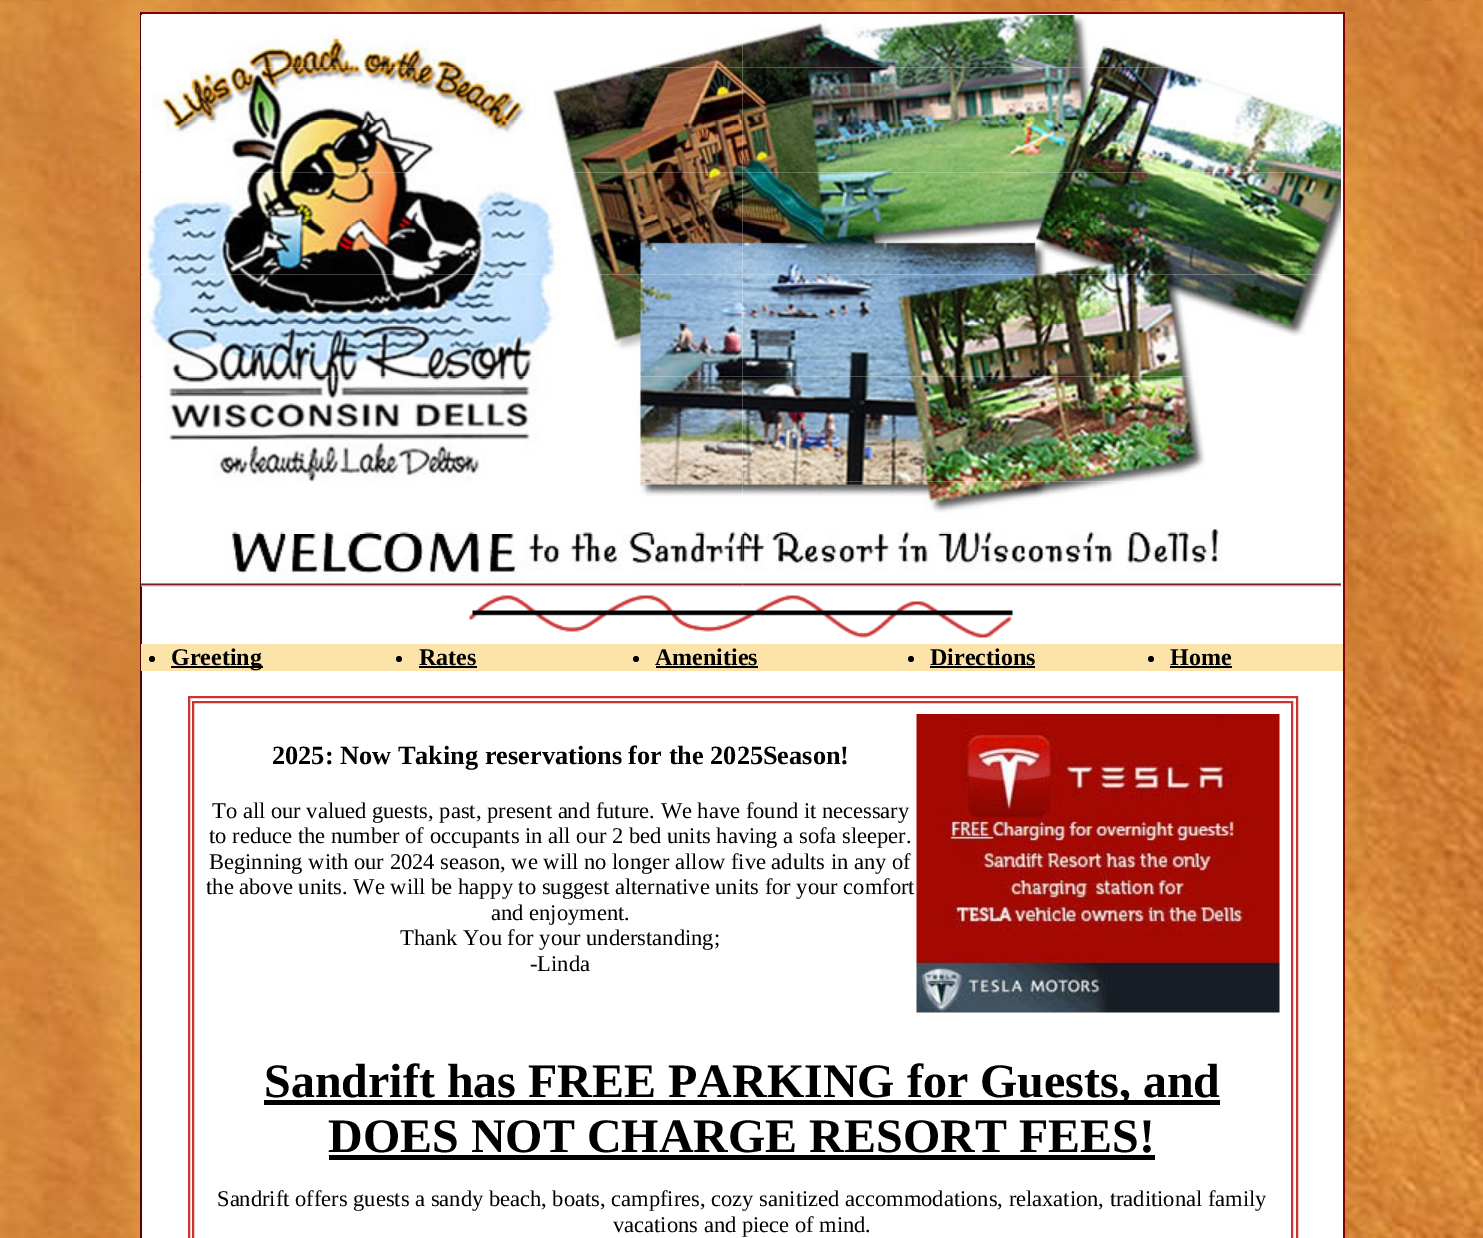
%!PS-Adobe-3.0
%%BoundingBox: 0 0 1483 1238
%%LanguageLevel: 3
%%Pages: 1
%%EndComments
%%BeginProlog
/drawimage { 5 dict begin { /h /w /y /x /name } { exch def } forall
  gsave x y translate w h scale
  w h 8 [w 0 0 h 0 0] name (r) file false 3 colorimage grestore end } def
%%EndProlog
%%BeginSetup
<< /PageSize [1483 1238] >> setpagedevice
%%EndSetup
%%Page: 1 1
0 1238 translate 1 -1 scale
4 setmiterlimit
1 setgray
0 0 1483 1238 rectfill
(images/1.raw) 0 0 1483 1238 drawimage
142 14 1201 1224 rectfill
0.502 0 0 setrgbcolor
140 12 1204 2 rectfill
1343 12 2 1226 rectfill
0.333 0 0 setrgbcolor
140 12 2 1226 rectfill
(images/2.raw) 141 15 602 53 drawimage
(images/3.raw) 742 15 429 53 drawimage
(images/4.raw) 141 67 602 53 drawimage
(images/5.raw) 742 67 581 53 drawimage
(images/6.raw) 141 120 602 53 drawimage
(images/7.raw) 742 120 599 53 drawimage
(images/8.raw) 141 172 602 50 drawimage
(images/9.raw) 742 172 599 50 drawimage
(images/10.raw) 141 222 602 53 drawimage
(images/11.raw) 742 222 599 53 drawimage
(images/12.raw) 141 274 602 50 drawimage
(images/13.raw) 742 274 581 50 drawimage
(images/14.raw) 141 324 602 53 drawimage
(images/15.raw) 742 324 564 53 drawimage
(images/16.raw) 141 376 602 53 drawimage
(images/17.raw) 742 376 459 53 drawimage
(images/18.raw) 141 429 602 53 drawimage
(images/19.raw) 742 429 464 53 drawimage
(images/20.raw) 141 481 602 53 drawimage
(images/21.raw) 742 481 481 53 drawimage
(images/22.raw) 141 534 602 53 drawimage
(images/23.raw) 742 534 599 53 drawimage
(images/24.raw) 469 595 544 43 drawimage
0.988 0.89 0.663 setrgbcolor
141 644 1202 27 rectfill
0 setgray
newpath 152 659 3 0 360 arc closepath fill
171 666 92 2 rectfill
newpath 399 659 3 0 360 arc closepath fill
419 666 58 2 rectfill
newpath 636 659 3 0 360 arc closepath fill
656 666 102 2 rectfill
newpath 911 659 3 0 360 arc closepath fill
930 666 105 2 rectfill
newpath 1151 659 3 0 360 arc closepath fill
1170 666 62 2 rectfill
0.8 0.2 0.2 setrgbcolor
2 setlinewidth
189 697 1108 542 rectstroke
193 702 1099 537 rectstroke
(images/25.raw) 916 714 364 299 drawimage
0 setgray
264 1100 956 5 rectfill
329 1155 826 5 rectfill
/LiberationSerif-Bold [24 0 0 -24 0 0] selectfont
171 665 moveto (Greeting) show
419 665 moveto (Rates) show
655 665 moveto (Amenities) show
930 665 moveto (Directions) show
1170 665 moveto (Home) show
/LiberationSerif-Bold [26.3 0 0 -26.3 0 0] selectfont
272 764 moveto (2025: Now Taking reservations for the 2025Season!) show
/LiberationSerif-Regular [22.5 0 0 -22.5 0 0] selectfont
212 818 moveto (To all our valued guests, past, present and future. We have found it necessary) show
209 843 moveto (to reduce the number of occupants in all our 2 bed units having a sofa sleeper.) show
209 869 moveto (Beginning with our 2024 season, we will no longer allow five adults in any of) show
206 894 moveto (the above units. We will be happy to suggest alternative units for your comfort) show
491 920 moveto (and enjoyment.) show
400 945 moveto (Thank You for your understanding;) show
530 971 moveto (-Linda) show
/LiberationSerif-Bold [48 0 0 -48 0 0] selectfont
264 1097 moveto (Sandrift has FREE PARKING for Guests, and) show
328 1152 moveto (DOES NOT CHARGE RESORT FEES!) show
/LiberationSerif-Regular [22.5 0 0 -22.5 0 0] selectfont
217 1206 moveto (Sandrift offers guests a sandy beach, boats, campfires, cozy sanitized accommodations, relaxation, traditional family) show
613 1232 moveto (vacations and piece of mind.) show
showpage
%%EOF
